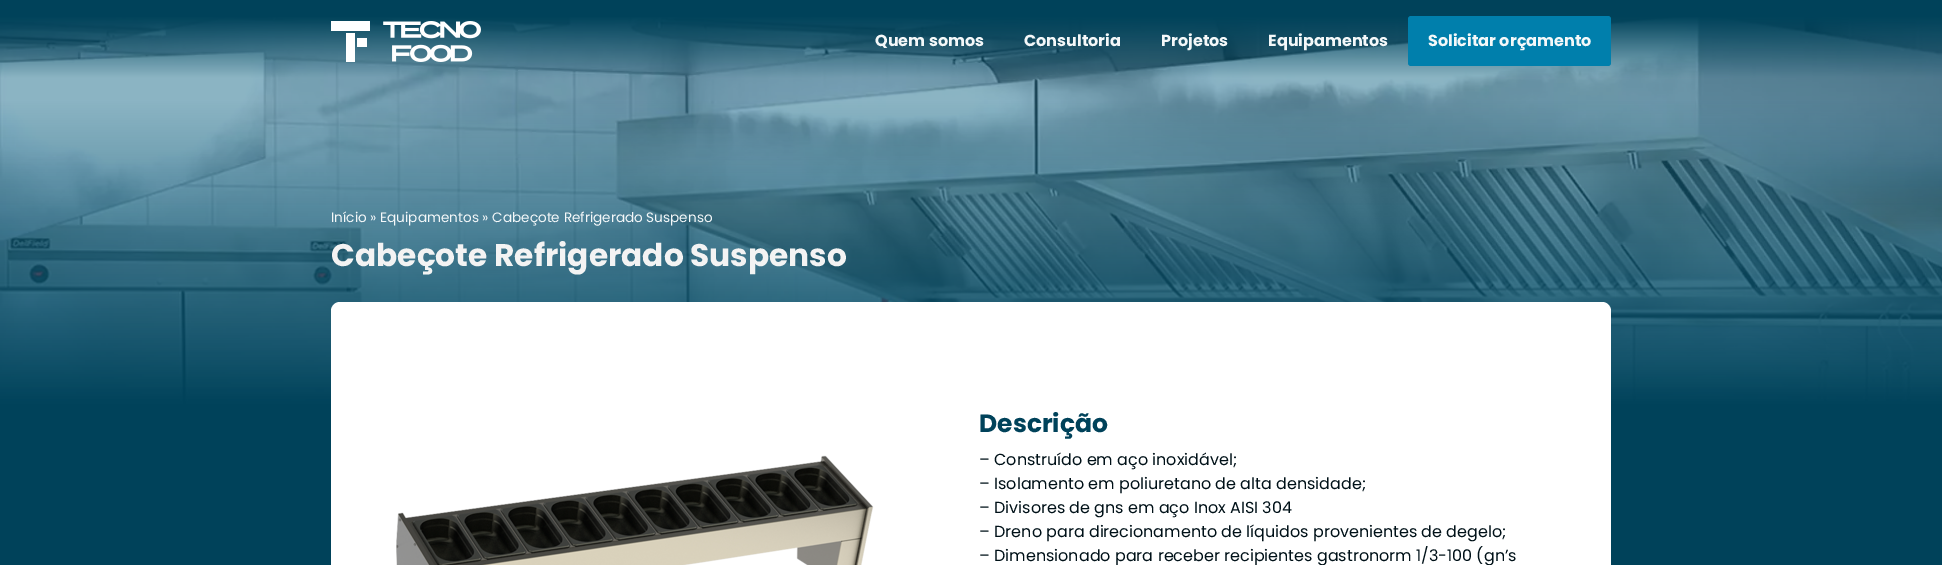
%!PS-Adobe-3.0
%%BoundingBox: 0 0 1942 565
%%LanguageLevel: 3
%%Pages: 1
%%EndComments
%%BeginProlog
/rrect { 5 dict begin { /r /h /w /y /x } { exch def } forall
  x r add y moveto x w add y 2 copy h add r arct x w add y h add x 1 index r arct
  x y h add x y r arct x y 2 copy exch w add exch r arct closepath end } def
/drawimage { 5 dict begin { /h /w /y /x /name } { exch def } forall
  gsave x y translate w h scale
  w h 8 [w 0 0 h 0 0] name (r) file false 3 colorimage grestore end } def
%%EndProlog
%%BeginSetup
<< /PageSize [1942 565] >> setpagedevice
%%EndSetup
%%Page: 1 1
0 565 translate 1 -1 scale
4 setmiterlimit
1 setgray
0 0 1942 565 rectfill
(images/2.raw) 0 0 1942 452 drawimage
(images/1.raw) 331 21 150 41 drawimage
0 0.498 0.675 setrgbcolor
1408 16 203 50 3 rrect fill
0 0.259 0.353 setrgbcolor
0 452 1942 113 rectfill
1 setgray
331 302 1280 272 9 rrect fill
(images/3.raw) 396 455 478 110 drawimage
/Poppins-Bold [16 0 0 -16 0 0] selectfont
0.957 0.973 0.976 setrgbcolor
875 46 moveto (Quem somos) show
1024 46 moveto (Consultoria) show
1161 46 moveto (Projetos) show
1268 46 moveto (Equipamentos) show
1428 46 moveto (Solicitar orçamento) show
/Poppins-Regular [13.6 0 0 -13.6 0 0] selectfont
331 222 moveto (Início » Equipamentos » Cabeçote Refrigerado Suspenso) show
/Poppins-Bold [31.25 0 0 -31.25 0 0] selectfont
0.953 setgray
331 266 moveto (Cabeçote Refrigerado Suspenso) show
/Poppins-Bold [25 0 0 -25 0 0] selectfont
0 0.259 0.353 setrgbcolor
979 432 moveto (Descrição) show
/Poppins-Regular [16 0 0 -16 0 0] selectfont
0 0.067 0.094 setrgbcolor
979 465 moveto (– Construído em aço inoxidável;) show
979 489 moveto (– Isolamento em poliuretano de alta densidade;) show
979 513 moveto (– Divisores de gns em aço Inox AISI 304) show
979 537 moveto (– Dreno para direcionamento de líquidos provenientes de degelo;) show
979 561 moveto (– Dimensionado para receber recipientes gastronorm 1/3-100 \(gn’s) show
showpage
%%EOF
